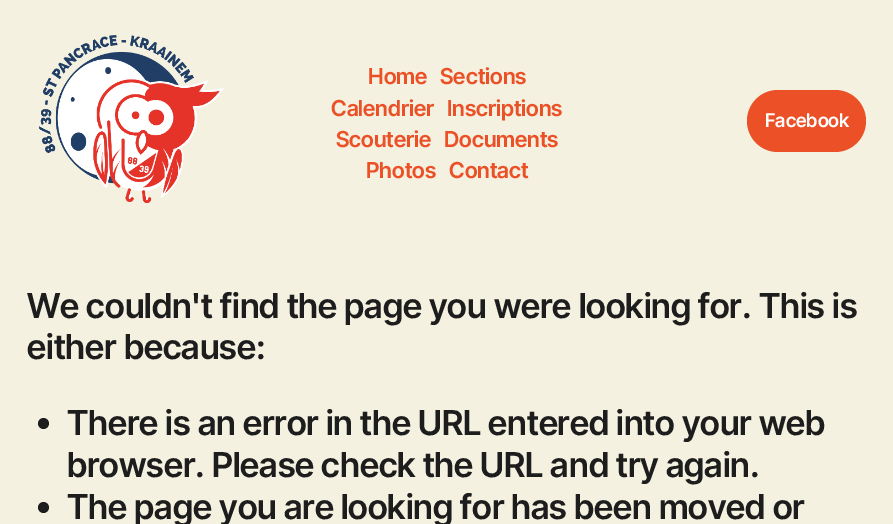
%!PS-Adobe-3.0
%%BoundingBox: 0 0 893 524
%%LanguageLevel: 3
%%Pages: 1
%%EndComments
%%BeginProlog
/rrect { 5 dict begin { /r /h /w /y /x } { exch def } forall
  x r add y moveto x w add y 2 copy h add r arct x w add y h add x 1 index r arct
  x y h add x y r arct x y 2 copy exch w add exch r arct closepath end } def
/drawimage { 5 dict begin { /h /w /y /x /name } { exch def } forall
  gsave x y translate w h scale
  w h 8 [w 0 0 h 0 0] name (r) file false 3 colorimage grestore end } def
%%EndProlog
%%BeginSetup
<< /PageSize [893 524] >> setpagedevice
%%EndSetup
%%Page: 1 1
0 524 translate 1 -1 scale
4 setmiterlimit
0.957 0.945 0.878 setrgbcolor
0 0 893 524 rectfill
(images/1.raw) 38 35 187 168 drawimage
0.922 0.314 0.153 setrgbcolor
747 90 119 62 31 rrect fill
0.114 setgray
newpath 43.5 423.5 5.5 0 360 arc closepath fill
newpath 43.5 507.5 5.5 0 360 arc closepath fill
/InterTight-SemiBold [22 0 0 -22 0 0] selectfont
0.922 0.314 0.153 setrgbcolor
368 84 moveto (Home) show
440 84 moveto (Sections) show
331 116 moveto (Calendrier) show
447 116 moveto (Inscriptions) show
336 147 moveto (Scouterie) show
444 147 moveto (Documents) show
366 178 moveto (Photos) show
449 178 moveto (Contact) show
/InterTight-SemiBold [19 0 0 -19 0 0] selectfont
1 setgray
765 127 moveto (Facebook) show
/InterTight-SemiBold [34.25 0 0 -34.25 0 0] selectfont
0.114 setgray
27 318 moveto (We couldn't find the page you were looking for. This is) show
27 359 moveto (either because:) show
67 435 moveto (There is an error in the URL entered into your web) show
67 477 moveto (browser. Please check the URL and try again.) show
67 519 moveto (The page you are looking for has been moved or) show
showpage
%%EOF
